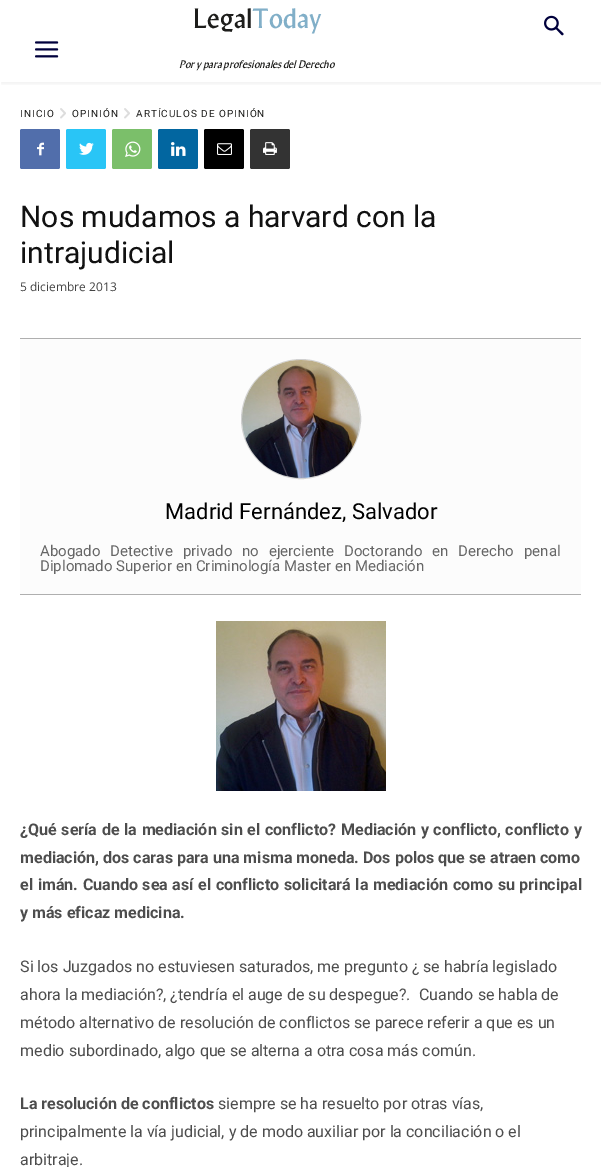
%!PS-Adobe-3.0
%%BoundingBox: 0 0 601 1167
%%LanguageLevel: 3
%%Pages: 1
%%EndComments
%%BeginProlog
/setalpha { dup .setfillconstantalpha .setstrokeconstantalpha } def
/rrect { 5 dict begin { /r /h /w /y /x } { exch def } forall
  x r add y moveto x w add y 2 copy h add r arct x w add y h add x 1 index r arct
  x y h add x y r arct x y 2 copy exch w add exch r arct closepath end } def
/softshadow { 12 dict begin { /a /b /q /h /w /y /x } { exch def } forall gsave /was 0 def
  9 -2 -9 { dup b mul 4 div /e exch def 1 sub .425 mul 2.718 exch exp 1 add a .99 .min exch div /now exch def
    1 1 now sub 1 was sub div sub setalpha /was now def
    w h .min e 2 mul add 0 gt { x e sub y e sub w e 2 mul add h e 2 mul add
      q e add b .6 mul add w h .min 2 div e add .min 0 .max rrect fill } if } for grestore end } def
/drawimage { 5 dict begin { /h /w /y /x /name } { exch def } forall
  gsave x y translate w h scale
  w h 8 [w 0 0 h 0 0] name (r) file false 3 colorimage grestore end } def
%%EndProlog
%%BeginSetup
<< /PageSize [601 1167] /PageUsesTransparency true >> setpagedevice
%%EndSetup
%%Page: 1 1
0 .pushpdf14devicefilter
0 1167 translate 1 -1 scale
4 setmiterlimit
1 setgray
0 0 601 1167 rectfill
(images/1.raw) 544 15 20 21 drawimage
(images/2.raw) 35 41 24 17 drawimage
gsave
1 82 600 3 rectclip
0 setgray
1 2 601 82 0 2 0.06 softshadow
grestore
(images/3.raw) 60 108 6 11 drawimage
(images/3.raw) 124 108 6 11 drawimage
0.318 0.431 0.671 setrgbcolor
20 129 40 40 2 rrect fill
(images/4.raw) 37 142 7 14 drawimage
0.161 0.773 0.965 setrgbcolor
66 129 40 40 2 rrect fill
(images/5.raw) 79 142 15 13 drawimage
0.482 0.749 0.416 setrgbcolor
112 129 40 40 2 rrect fill
(images/6.raw) 125 141 16 16 drawimage
0.008 0.4 0.627 setrgbcolor
158 129 40 40 2 rrect fill
(images/7.raw) 171 142 15 14 drawimage
0 setgray
204 129 40 40 2 rrect fill
(images/8.raw) 217 143 15 12 drawimage
0.2 setgray
250 129 40 40 2 rrect fill
(images/9.raw) 263 142 14 13 drawimage
0.988 setgray
20 339 561 255 rectfill
0.686 setgray
20 338 561 1 rectfill
20 594 561 1 rectfill
0.816 setgray
newpath 301 419 59.5 0 360 arc closepath stroke
(images/10.raw) 242 360 118 118 drawimage
(images/11.raw) 216 621 170 170 drawimage
/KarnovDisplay-Regular [28 0 0 -28 0 0] selectfont
0.114 0.114 0.106 setrgbcolor
193 28 moveto (Legal) show
0.506 0.686 0.784 setrgbcolor
252 28 moveto (Today) show
/KarnovDisplay-Italic [11 0 0 -11 0 0] selectfont
0.114 0.114 0.106 setrgbcolor
179 68 moveto (Por y para profesionales del Derecho) show
/Roboto-Regular [10 0 0 -10 0 0] selectfont
20 117 moveto 1 0 (INICIO) ashow
72 117 moveto 1 0 (OPINIÓN) ashow
136 117 moveto 1 0 (ARTÍCULOS DE OPINIÓN) ashow
/Roboto-Regular [30 0 0 -30 0 0] selectfont
0.067 setgray
20 227 moveto (Nos mudamos a harvard con la) show
20 263 moveto (intrajudicial) show
/OpenSans-Regular [12 0 0 -12 0 0] selectfont
0.267 setgray
20 291 moveto (5 diciembre 2013) show
/Roboto-Regular [22 0 0 -22 0 0] selectfont
0 setgray
165 519 moveto (Madrid Fernández, Salvador) show
/Roboto-Regular [15 0 0 -15 0 0] selectfont
0.4 setgray
40 556 moveto 6.25 0 32 (Abogado Detective privado no ejerciente Doctorando en Derecho penal) widthshow
40 571 moveto (Diplomado Superior en Criminología Master en Mediación) show
/Roboto-Bold [16 0 0 -16 0 0] selectfont
0.302 setgray
20 835 moveto 0.75 0 32 (¿Qué sería de la mediación sin el conflicto? Mediación y conflicto, conflicto y) widthshow
20 863 moveto 0.1 0 32 (mediación, dos caras para una misma moneda. Dos polos que se atraen como) widthshow
20 890 moveto 0.75 0 32 (el imán. Cuando sea así el conflicto solicitará la mediación como su principal) widthshow
20 918 moveto (y más eficaz medicina.) show
/Roboto-Regular [16 0 0 -16 0 0] selectfont
20 972 moveto (Si los Juzgados no estuviesen saturados, me pregunto ¿ se habría legislado) show
20 1000 moveto (ahora la mediación?, ¿tendría el auge de su despegue?.  Cuando se habla de) show
20 1028 moveto (método alternativo de resolución de conflictos se parece referir a que es un) show
20 1056 moveto (medio subordinado, algo que se alterna a otra cosa más común.) show
/Roboto-Bold [16 0 0 -16 0 0] selectfont
20 1109 moveto (La resolución de conflictos) show
/Roboto-Regular [16 0 0 -16 0 0] selectfont
218 1109 moveto (siempre se ha resuelto por otras vías,) show
20 1137 moveto (principalmente la vía judicial, y de modo auxiliar por la conciliación o el) show
20 1165 moveto (arbitraje.) show
.poppdf14devicefilter showpage
%%EOF
